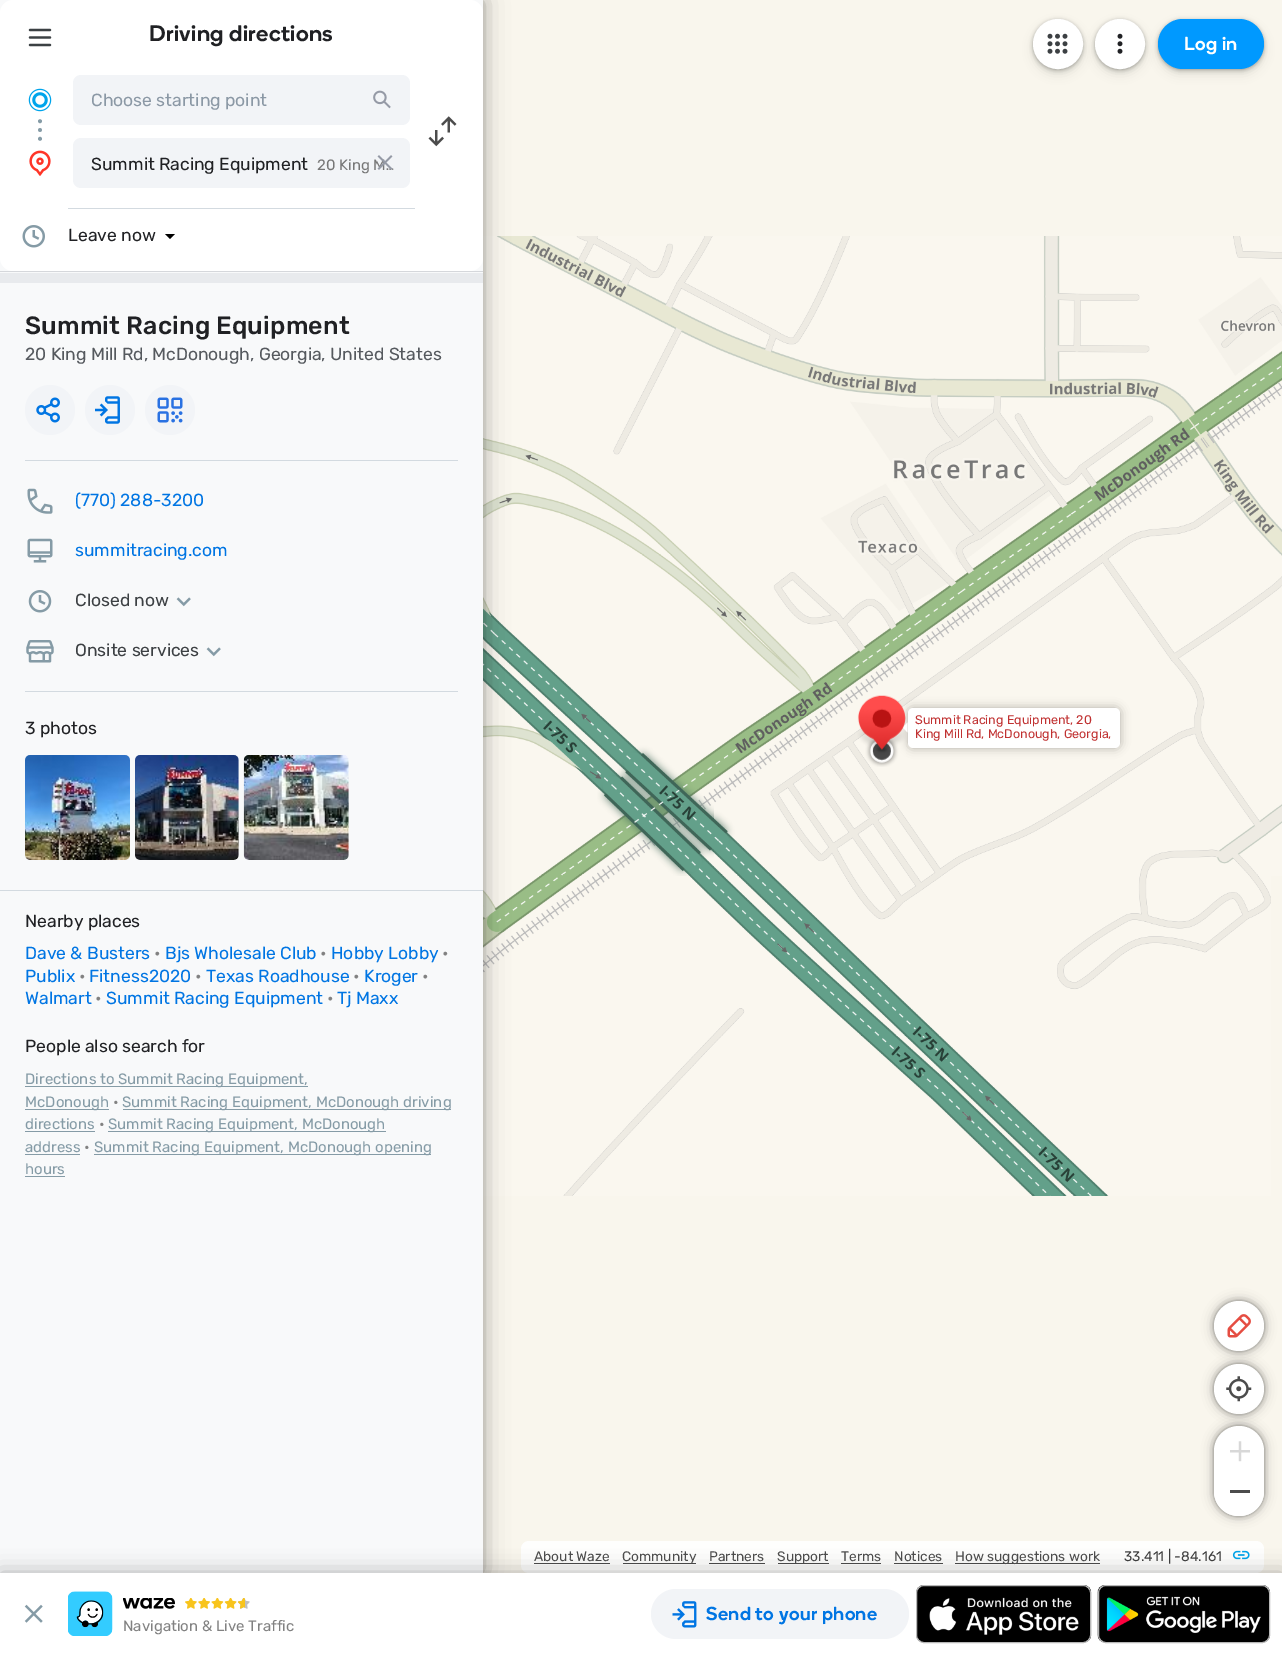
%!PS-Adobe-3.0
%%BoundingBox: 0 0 1282 1655
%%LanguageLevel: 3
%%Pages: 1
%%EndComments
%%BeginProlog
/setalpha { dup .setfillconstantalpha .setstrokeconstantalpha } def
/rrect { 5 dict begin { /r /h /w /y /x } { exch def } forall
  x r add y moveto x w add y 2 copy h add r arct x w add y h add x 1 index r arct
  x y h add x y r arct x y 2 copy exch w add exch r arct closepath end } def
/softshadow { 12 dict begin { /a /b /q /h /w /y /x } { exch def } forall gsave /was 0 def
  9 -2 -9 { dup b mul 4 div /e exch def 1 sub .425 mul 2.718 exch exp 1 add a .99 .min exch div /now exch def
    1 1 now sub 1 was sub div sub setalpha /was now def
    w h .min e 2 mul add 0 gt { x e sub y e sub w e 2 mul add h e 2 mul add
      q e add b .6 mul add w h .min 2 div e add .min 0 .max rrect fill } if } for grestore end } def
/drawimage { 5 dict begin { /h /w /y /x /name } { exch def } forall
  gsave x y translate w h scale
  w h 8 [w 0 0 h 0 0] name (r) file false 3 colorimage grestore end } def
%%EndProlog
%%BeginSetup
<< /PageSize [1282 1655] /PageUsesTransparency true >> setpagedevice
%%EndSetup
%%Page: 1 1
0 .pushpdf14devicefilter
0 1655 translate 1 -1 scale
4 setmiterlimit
0.976 0.965 0.929 setrgbcolor
0 0 1282 1655 rectfill
(images/19.raw) 483 236 231 320 drawimage
(images/22.raw) 483 556 231 320 drawimage
(images/25.raw) 483 876 231 320 drawimage
0 setgray
0 3 483 1572 0 5 0.12 softshadow
0.996 0.996 0.992 setrgbcolor
521 1541 743 32 8 rrect fill
0 setgray
0 0 483 1573 0 12.5 0.3 softshadow
0.973 0.976 0.98 setrgbcolor
0 0 483 1573 rectfill
1 setgray
newpath 13 0 moveto 470 0 lineto 477 0 483 6 483 13 curveto 483 75 lineto 0 75 lineto 0 13 lineto 0 6 6 0 13 0 curveto closepath fill
(images/1.raw) 28 28 24 19 drawimage
0 75 483 133 rectfill
0.525 0.612 0.655 setrgbcolor
newpath 40 121.2 1.9 0 360 arc closepath fill
newpath 40 130 1.9 0 360 arc closepath fill
newpath 40 138.8 1.9 0 360 arc closepath fill
(images/2.raw) 28 88 24 24 drawimage
0.949 0.957 0.969 setrgbcolor
73 75 337 50 8 rrect fill
(images/3.raw) 373 90 18 19 drawimage
(images/4.raw) 428 116 29 31 drawimage
(images/5.raw) 29 150 22 26 drawimage
73 138 337 50 8 rrect fill
1 setgray
newpath 0 208 moveto 483 208 lineto 483 258 lineto 483 265 477 271 470 271 curveto 13 271 lineto 6 271 0 265 0 258 curveto closepath fill
0.827 0.855 0.878 setrgbcolor
68 208 347 1 rectfill
(images/7.raw) 22 225 23 23 drawimage
0 setgray
newpath 165 234 moveto 175 234 lineto 170 239 lineto closepath fill
0.835 0.843 0.859 setrgbcolor
0 271 483 1 rectfill
0.91 0.918 0.929 setrgbcolor
0 273 483 10 rectfill
0.827 0.855 0.878 setrgbcolor
25 460 433 1 rectfill
0.949 0.957 0.969 setrgbcolor
newpath 50 410 25 0 360 arc closepath fill
(images/8.raw) 36 397 24 26 drawimage
newpath 110 410 25 0 360 arc closepath fill
(images/9.raw) 95 396 25 28 drawimage
newpath 170 410 25 0 360 arc closepath fill
(images/10.raw) 157 397 26 26 drawimage
0.827 0.855 0.878 setrgbcolor
25 691 433 1 rectfill
(images/11.raw) 27 488 26 26 drawimage
(images/12.raw) 27 538 26 25 drawimage
(images/13.raw) 28 590 24 23 drawimage
(images/14.raw) 176 597 15 10 drawimage
(images/15.raw) 26 640 28 23 drawimage
(images/14.raw) 206 647 15 10 drawimage
(images/16.raw) 25 755 105 105 drawimage
(images/17.raw) 135 755 104 105 drawimage
(images/18.raw) 243 755 106 105 drawimage
0 890 483 1 rectfill
0.522 0.608 0.651 setrgbcolor
25 1086 283 1 rectfill
25 1109 84 1 rectfill
123 1109 328 1 rectfill
25 1131 70 1 rectfill
108 1131 278 1 rectfill
25 1154 55 1 rectfill
94 1154 337 1 rectfill
25 1176 40 1 rectfill
(images/20.raw) 714 236 320 320 drawimage
(images/21.raw) 1034 236 248 320 drawimage
(images/23.raw) 714 556 320 320 drawimage
(images/24.raw) 1034 556 248 320 drawimage
(images/26.raw) 714 876 320 320 drawimage
(images/27.raw) 1034 876 237 320 drawimage
0 setgray
908 708 212 40 5 5 0.3 softshadow
1 setgray
newpath 907.5 722.5 moveto 907.5 732.5 lineto 902.5 727.5 lineto closepath fill
(images/28.raw) 857 695 49 72 drawimage
908 708 212 40 5 rrect fill
0 setgray
1214 1301 50 50 25 6 0.3 softshadow
1214 1301 50 50 25 2.5 0.3 softshadow
1 setgray
newpath 1239 1326 25 0 360 arc closepath fill
(images/29.raw) 1227 1314 24 24 drawimage
0 setgray
1214 1364 50 50 25 6 0.3 softshadow
1214 1364 50 50 25 2.5 0.3 softshadow
1 setgray
newpath 1239 1389 25 0 360 arc closepath fill
(images/30.raw) 1226 1376 26 26 drawimage
0 setgray
1214 1426 50 90 25 6 0.3 softshadow
1214 1426 50 90 25 2.5 0.3 softshadow
1 setgray
1214 1426 50 90 25 rrect fill
(images/31.raw) 1230 1441 20 21 drawimage
newpath 1214 1471 moveto 1264 1471 lineto 1264 1491 lineto 1264 1505 1253 1516 1239 1516 curveto 1225 1516 1214 1505 1214 1491 curveto closepath fill
0.298 setgray
1230 1490 20 3 rectfill
534 1563 76 1 rectfill
623 1563 73 1 rectfill
709 1563 56 1 rectfill
778 1563 51 1 rectfill
841 1563 40 1 rectfill
894 1563 49 1 rectfill
955 1563 145 1 rectfill
(images/32.raw) 1232 1550 18 10 drawimage
0.235 0.251 0.263 setrgbcolor
1033 24 50 50 25 5 0.15 softshadow
0 setgray
1033 20 50 50 25 2 0.3 softshadow
1 setgray
newpath 1058 44 23.5 0 360 arc closepath gsave fill grestore
3 setlinewidth
stroke
(images/33.raw) 1047 33 21 21 drawimage
0.235 0.251 0.263 setrgbcolor
1095 24 50 50 25 5 0.15 softshadow
0 setgray
1095 20 50 50 25 2 0.3 softshadow
1 setgray
newpath 1120 44 23.5 0 360 arc closepath gsave fill grestore
stroke
(images/34.raw) 1117 33 6 21 drawimage
0.235 0.251 0.263 setrgbcolor
1158 24 106 50 25 5 0.15 softshadow
0 setgray
1158 20 106 50 25 2 0.3 softshadow
0 0.6 1 setrgbcolor
1158 19 106 50 25 rrect fill
0 setgray
0 1573 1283 82 0 11 0.3 softshadow
1 setgray
0 1573 1282 82 rectfill
(images/35.raw) 24 1604 19 19 drawimage
0.949 0.957 0.969 setrgbcolor
651 1589 258 50 25 rrect fill
(images/36.raw) 672 1601 25 27 drawimage
(images/37.raw) 916 1585 176 58 drawimage
0.718 setgray
1 setlinewidth
916.5 1585.5 174 57 7.5 rrect stroke
(images/38.raw) 1097 1585 173 58 drawimage
1098.5 1585.5 171 57 7.5 rrect stroke
(images/39.raw) 68 1591 45 45 drawimage
(images/40.raw) 123 1598 52 11 drawimage
(images/41.raw) 185 1598 65 11 drawimage
/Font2-Medium [22.5 0 0 -22.5 0 0] selectfont
0.125 0.129 0.141 setrgbcolor
149 41 moveto 0.4 0 (Driving directions) ashow
/Rubik-Regular [17.5 0 0 -17.5 0 0] selectfont
0.545 0.596 0.647 setrgbcolor
91 106 moveto (Choose starting point) show
0.125 0.129 0.141 setrgbcolor
91 170 moveto (Summit Racing Equipment) show
/Rubik-Regular [15 0 0 -15 0 0] selectfont
0.467 setgray
317 170 moveto (20 King M…) show
(images/6.raw) 377 155 16 15 drawimage
/Rubik-Regular [17.5 0 0 -17.5 0 0] selectfont
0.125 0.129 0.141 setrgbcolor
68 241 moveto (Leave now) show
/Rubik-Medium [25 0 0 -25 0 0] selectfont
25 334 moveto 0.2 0 (Summit Racing Equipment) ashow
/Rubik-Regular [17.5 0 0 -17.5 0 0] selectfont
0.333 0.349 0.369 setrgbcolor
25 360 moveto (20 King Mill Rd, McDonough, Georgia, United States) show
0 0.459 0.89 setrgbcolor
75 506 moveto (\(770\) 288-3200) show
75 556 moveto (summitracing.com) show
0.235 0.251 0.263 setrgbcolor
75 606 moveto (Closed now) show
75 656 moveto (Onsite services) show
0.125 0.129 0.141 setrgbcolor
25 734 moveto (3 photos) show
25 927 moveto (Nearby places) show
0 0.459 0.89 setrgbcolor
25 959 moveto (Dave & Busters) show
0.506 setgray
154 959 moveto (•) show
0 0.459 0.89 setrgbcolor
165 959 moveto (Bjs Wholesale Club) show
0.506 setgray
320 959 moveto (•) show
0 0.459 0.89 setrgbcolor
331 959 moveto (Hobby Lobby) show
0.506 setgray
442 959 moveto (•) show
0 0.459 0.89 setrgbcolor
25 982 moveto (Publix) show
0.506 setgray
79 982 moveto (•) show
0 0.459 0.89 setrgbcolor
89 982 moveto (Fitness2020) show
0.506 setgray
195 982 moveto (•) show
0 0.459 0.89 setrgbcolor
206 982 moveto (Texas Roadhouse) show
0.506 setgray
353 982 moveto (•) show
0 0.459 0.89 setrgbcolor
364 982 moveto (Kroger) show
0.506 setgray
422 982 moveto (•) show
0 0.459 0.89 setrgbcolor
25 1004 moveto (Walmart) show
0.506 setgray
95 1004 moveto (•) show
0 0.459 0.89 setrgbcolor
106 1004 moveto (Summit Racing Equipment) show
0.506 setgray
327 1004 moveto (•) show
0 0.459 0.89 setrgbcolor
337 1004 moveto (Tj Maxx) show
0.125 0.129 0.141 setrgbcolor
25 1052 moveto (People also search for) show
/Rubik-Regular [15 0 0 -15 0 0] selectfont
0.522 0.608 0.651 setrgbcolor
25 1084 moveto (Directions to Summit Racing Equipment,) show
25 1107 moveto (McDonough) show
0.506 setgray
113 1107 moveto (•) show
0.522 0.608 0.651 setrgbcolor
122 1107 moveto (Summit Racing Equipment, McDonough driving) show
25 1129 moveto (directions) show
0.506 setgray
99 1129 moveto (•) show
0.522 0.608 0.651 setrgbcolor
108 1129 moveto (Summit Racing Equipment, McDonough) show
25 1152 moveto (address) show
0.506 setgray
84 1152 moveto (•) show
0.522 0.608 0.651 setrgbcolor
94 1152 moveto (Summit Racing Equipment, McDonough opening) show
25 1174 moveto (hours) show
/Rubik-Regular [12.5 0 0 -12.5 0 0] selectfont
0.753 0.192 0.192 setrgbcolor
915 724 moveto (Summit Racing Equipment, 20) show
915 738 moveto (King Mill Rd, McDonough, Georgia,) show
/Rubik-Regular [13.75 0 0 -13.75 0 0] selectfont
0.298 setgray
534 1561 moveto (About Waze) show
622 1561 moveto (Community) show
709 1561 moveto (Partners) show
777 1561 moveto (Support) show
841 1561 moveto (Terms) show
894 1561 moveto (Notices) show
955 1561 moveto (How suggestions work) show
0.239 setgray
1124 1561 moveto (33.411 | -84.161) show
/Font-Medium [18.75 0 0 -18.75 0 0] selectfont
1 setgray
1184 50 moveto 0.4 0 (Log in) ashow
0 0.459 0.89 setrgbcolor
706 1620 moveto 0.4 0 (Send to your phone) ashow
/Rubik-Regular [15 0 0 -15 0 0] selectfont
0.506 setgray
123 1631 moveto (Navigation & Live Traffic) show
.poppdf14devicefilter showpage
%%EOF
